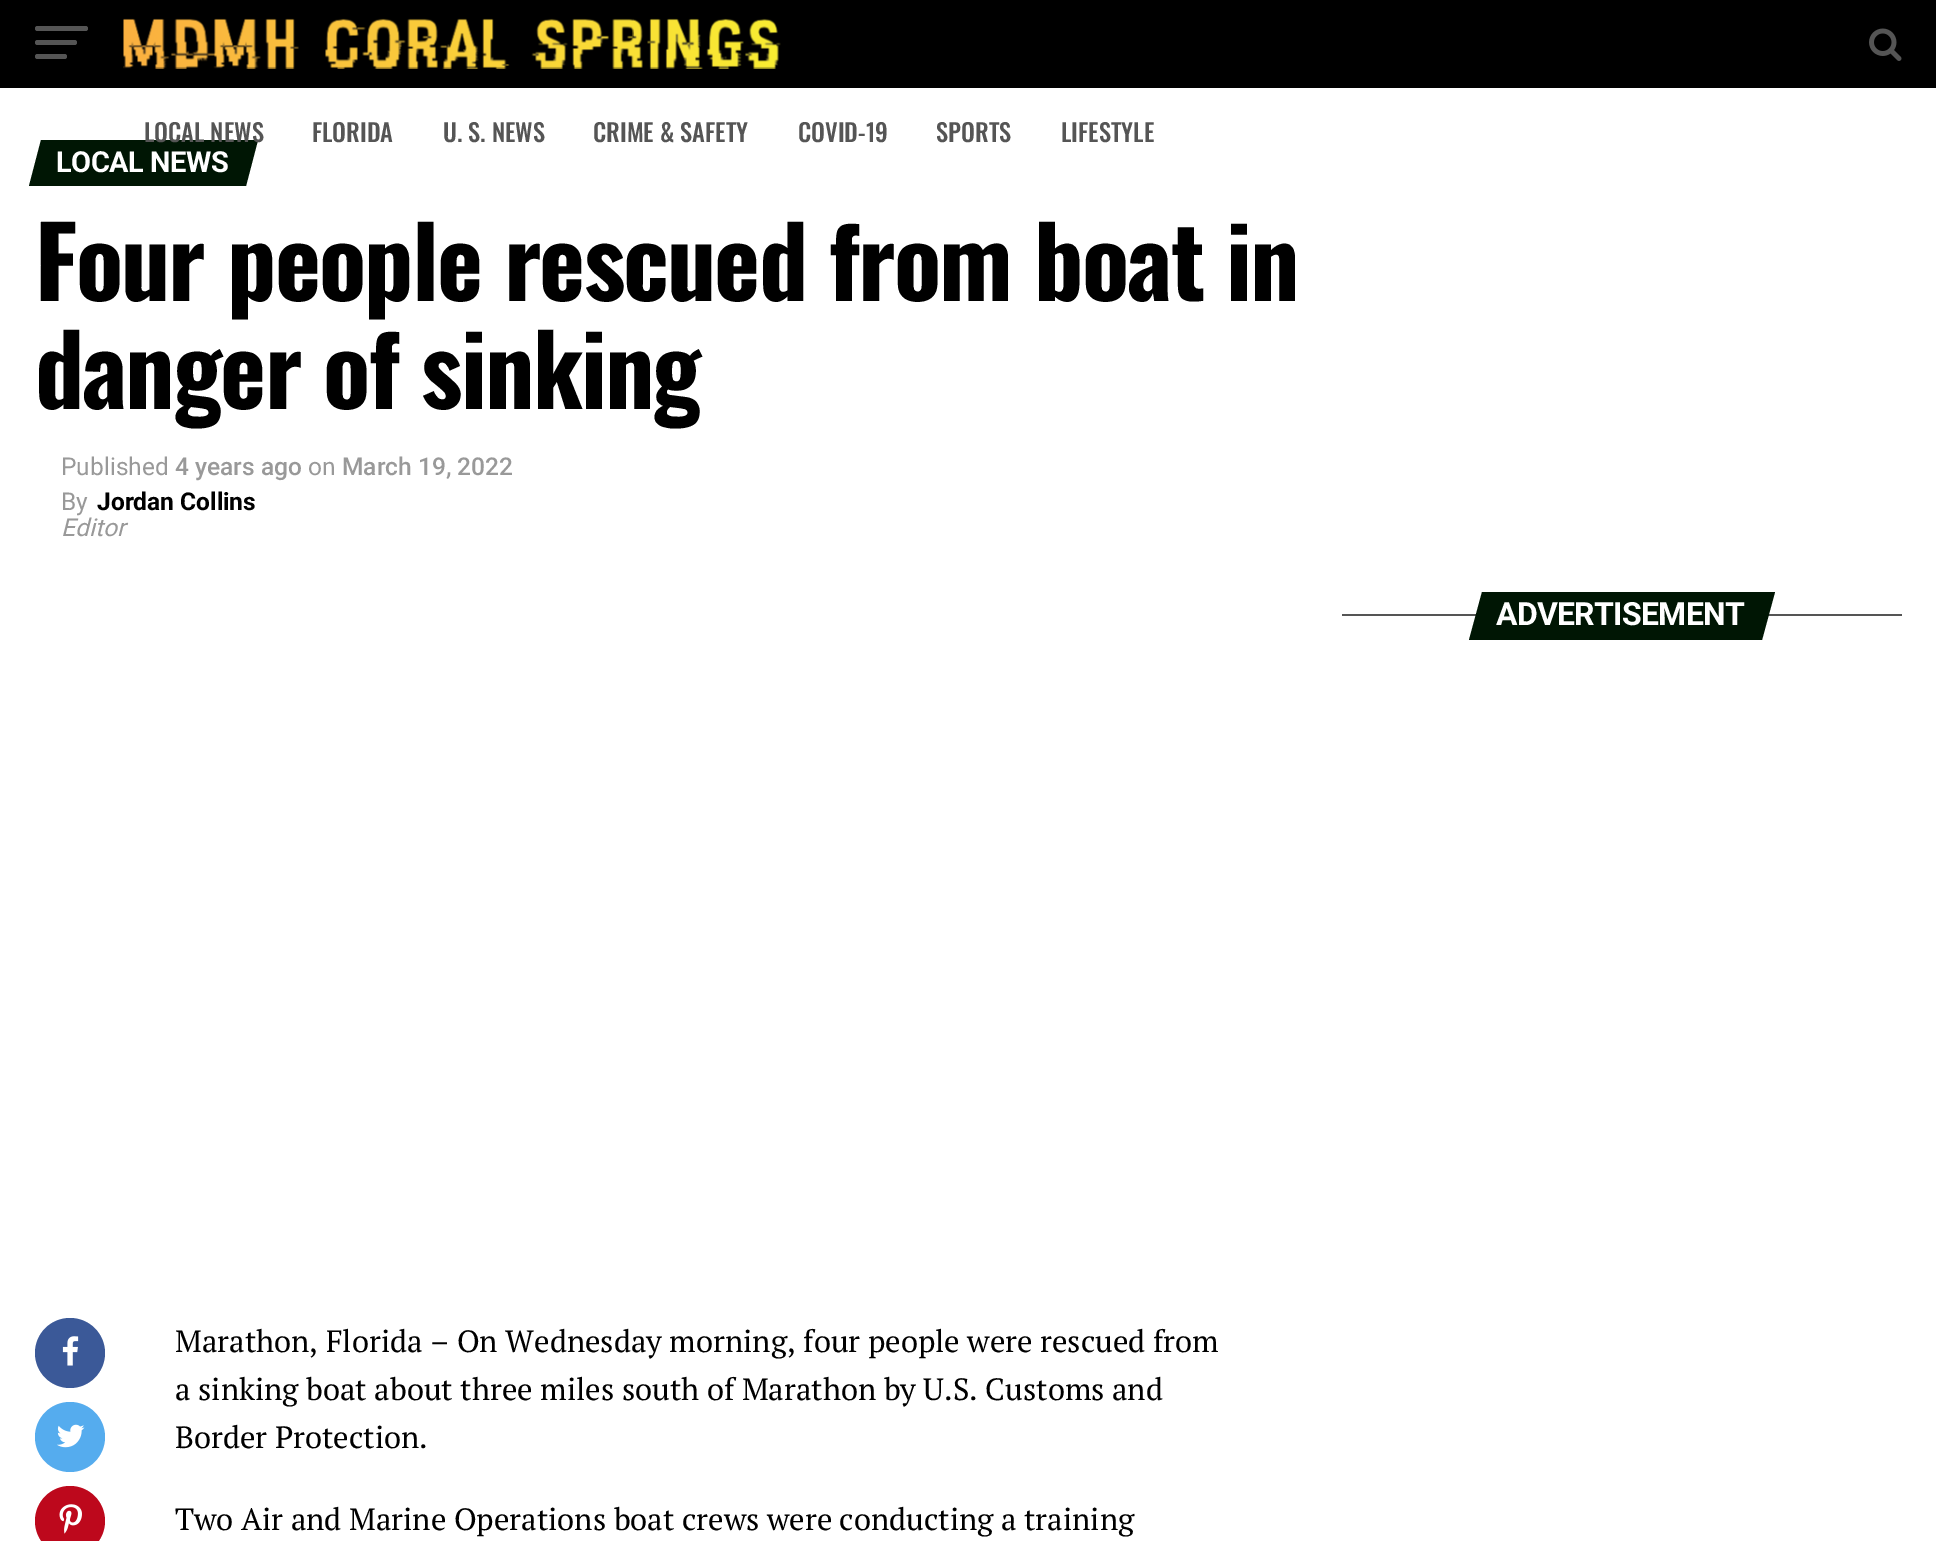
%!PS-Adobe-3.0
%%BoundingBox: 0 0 1936 1541
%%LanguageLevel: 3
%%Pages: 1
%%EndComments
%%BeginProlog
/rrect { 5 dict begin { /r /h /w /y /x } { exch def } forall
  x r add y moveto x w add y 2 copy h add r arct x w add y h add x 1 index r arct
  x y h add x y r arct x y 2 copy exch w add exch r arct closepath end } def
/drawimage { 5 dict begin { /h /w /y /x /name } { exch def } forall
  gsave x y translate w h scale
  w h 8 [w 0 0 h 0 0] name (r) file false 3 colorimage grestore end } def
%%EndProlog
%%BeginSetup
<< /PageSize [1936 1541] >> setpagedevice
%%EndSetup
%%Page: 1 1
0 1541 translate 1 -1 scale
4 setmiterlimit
1 setgray
0 0 1936 1541 rectfill
0 setgray
0 0 1936 88 rectfill
(images/1.raw) 1869 28 33 33 drawimage
0.333 setgray
35 26 53 5 2.5 rrect fill
35 40 42 5 2.5 rrect fill
35 54 32 5 2.5 rrect fill
(images/2.raw) 123 18 658 51 drawimage
0 0.086 0.016 setrgbcolor
newpath 41 140 moveto 258 140 lineto 246 186 lineto 29 186 lineto closepath fill
0.333 setgray
1342 614 560 2 rectfill
0 0.086 0.016 setrgbcolor
newpath 1482 592 moveto 1775 592 lineto 1762 640 lineto 1469 640 lineto closepath fill
0.231 0.349 0.596 setrgbcolor
newpath 70 1353 35 0 360 arc closepath fill
(images/3.raw) 62 1336 17 30 drawimage
0.333 0.675 0.933 setrgbcolor
newpath 70 1437 35 0 360 arc closepath fill
(images/4.raw) 57 1424 28 24 drawimage
0.741 0.031 0.11 setrgbcolor
newpath 70 1521 35 0 360 arc closepath fill
(images/5.raw) 59 1504 23 30 drawimage
/Oswald-Medium [24.5 0 0 -24.5 0 0] selectfont
0.333 setgray
144 142 moveto (LOCAL NEWS) show
312 142 moveto (FLORIDA) show
443 142 moveto (U. S. NEWS) show
593 142 moveto (CRIME & SAFETY) show
798 142 moveto (COVID-19) show
936 142 moveto (SPORTS) show
1061 142 moveto (LIFESTYLE) show
/Roboto-Bold [29 0 0 -29 0 0] selectfont
1 setgray
56 172 moveto -0.5 0 (LOCAL NEWS) ashow
/Oswald-Bold [98 0 0 -98 0 0] selectfont
0 setgray
35 301 moveto -1.95 0 (Four people rescued from boat in) ashow
35 409 moveto -1.95 0 (danger of sinking) ashow
/Roboto-Regular [24.5 0 0 -24.5 0 0] selectfont
0.6 setgray
61 475 moveto (Published) show
/Roboto-Medium [24.5 0 0 -24.5 0 0] selectfont
175 475 moveto (4 years ago) show
/Roboto-Regular [24.5 0 0 -24.5 0 0] selectfont
308 475 moveto (on) show
/Roboto-Medium [24.5 0 0 -24.5 0 0] selectfont
342 475 moveto (March 19, 2022) show
/Roboto-Regular [24.5 0 0 -24.5 0 0] selectfont
61 510 moveto (By) show
/Roboto-Bold [24.5 0 0 -24.5 0 0] selectfont
0 setgray
97 510 moveto (Jordan Collins) show
/Roboto-Italic [24.5 0 0 -24.5 0 0] selectfont
0.6 setgray
61 536 moveto (Editor) show
/Roboto-Bold [32 0 0 -32 0 0] selectfont
1 setgray
1496 625 moveto -0.7 0 (ADVERTISEMENT) ashow
/PTSerif-Regular [30.8 0 0 -30.8 0 0] selectfont
0 setgray
175 1352 moveto (Marathon, Florida – On Wednesday morning, four people were rescued from) show
175 1400 moveto (a sinking boat about three miles south of Marathon by U.S. Customs and) show
175 1448 moveto (Border Protection.) show
175 1530 moveto (Two Air and Marine Operations boat crews were conducting a training) show
showpage
%%EOF
